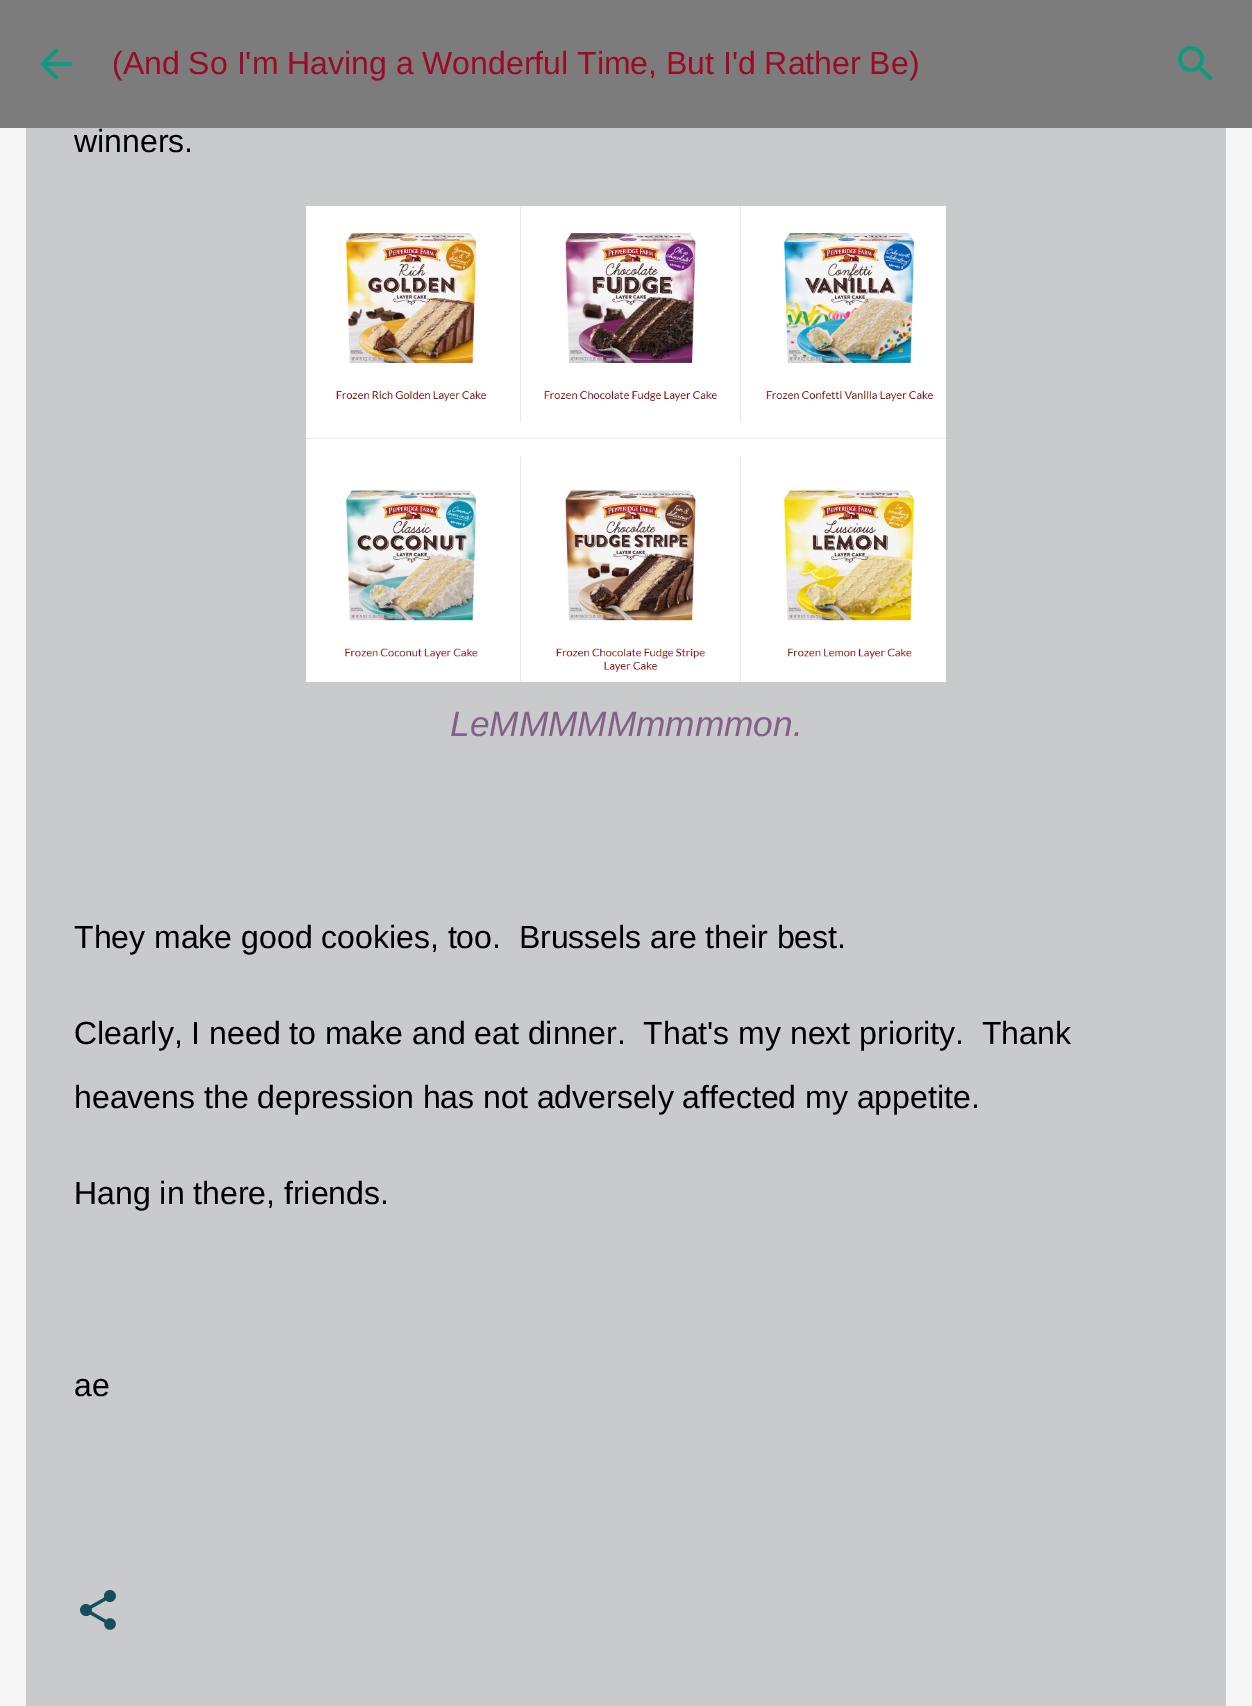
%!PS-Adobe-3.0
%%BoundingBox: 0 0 1252 1706
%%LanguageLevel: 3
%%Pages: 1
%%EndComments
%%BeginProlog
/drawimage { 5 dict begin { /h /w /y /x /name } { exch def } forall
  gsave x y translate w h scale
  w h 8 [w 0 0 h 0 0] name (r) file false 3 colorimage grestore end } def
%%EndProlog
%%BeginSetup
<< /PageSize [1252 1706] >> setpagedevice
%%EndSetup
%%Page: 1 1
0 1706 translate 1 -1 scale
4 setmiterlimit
0.965 setgray
0 0 1252 1706 rectfill
0.486 setgray
0 0 1252 128 rectfill
(images/1.raw) 40 48 32 32 drawimage
(images/2.raw) 1178 46 35 35 drawimage
0.784 0.792 0.8 setrgbcolor
26 128 1200 1578 rectfill
(images/3.raw) 306 206 640 476 drawimage
(images/4.raw) 80 1590 36 40 drawimage
/LiberationSans-Regular [32 0 0 -32 0 0] selectfont
0.612 0.039 0.161 setrgbcolor
112 74 moveto (\(And So I'm Having a Wonderful Time, But I'd Rather Be\)) show
0 setgray
74 152 moveto (winners.) show
/LiberationSans-Italic [35.25 0 0 -35.25 0 0] selectfont
0.514 0.373 0.541 setrgbcolor
450 736 moveto (LeMMMMMmmmmon.) show
/LiberationSans-Regular [32 0 0 -32 0 0] selectfont
0 setgray
74 948 moveto (They make good cookies, too.  Brussels are their best.) show
74 1044 moveto (Clearly, I need to make and eat dinner.  That's my next priority.  Thank) show
74 1108 moveto (heavens the depression has not adversely affected my appetite.) show
74 1204 moveto (Hang in there, friends.) show
74 1396 moveto (ae) show
showpage
%%EOF
